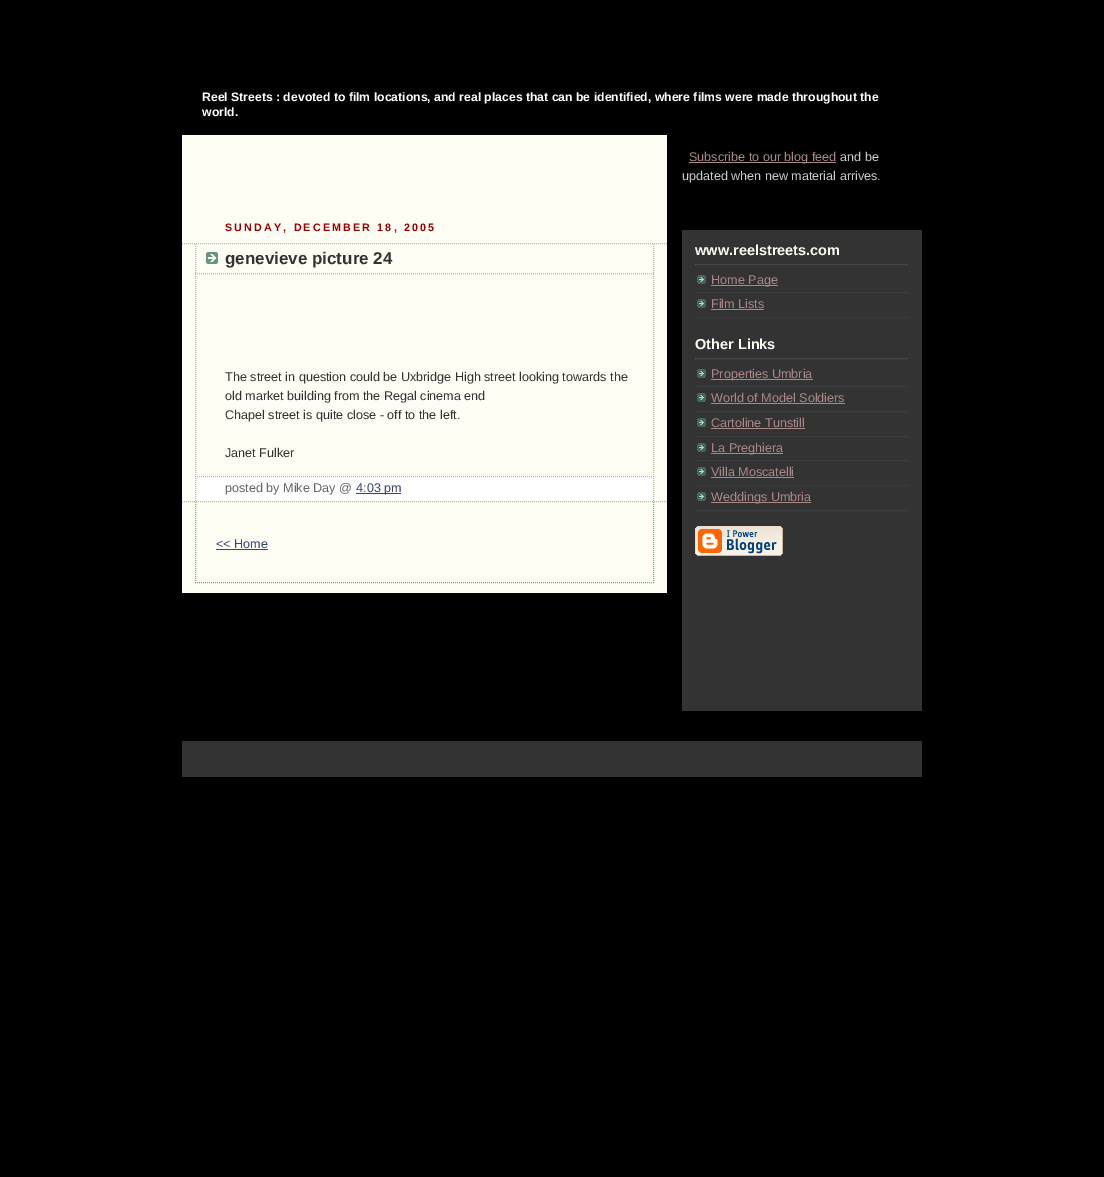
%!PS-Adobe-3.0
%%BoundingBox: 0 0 1104 1177
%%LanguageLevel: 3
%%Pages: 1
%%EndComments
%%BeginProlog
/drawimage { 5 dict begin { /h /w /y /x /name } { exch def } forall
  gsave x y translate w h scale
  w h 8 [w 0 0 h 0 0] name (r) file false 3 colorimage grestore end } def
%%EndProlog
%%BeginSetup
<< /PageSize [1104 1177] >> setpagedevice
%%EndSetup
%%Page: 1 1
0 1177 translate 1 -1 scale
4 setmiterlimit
0 setgray
0 0 1104 1177 rectfill
1 0.996 0.961 setrgbcolor
182 135 485 458 rectfill
0.733 0.733 0.6 setrgbcolor
[1 1] 0 setdash
newpath 182 243.5 moveto 667 243.5 lineto stroke
newpath 182 501.5 moveto 667 501.5 lineto stroke
(images/1.raw) 206 252 12 12 drawimage
newpath 653.5 244 moveto 653.5 274 lineto stroke
newpath 195 273.5 moveto 654 273.5 lineto stroke
newpath 195.5 244 moveto 195.5 274 lineto stroke
newpath 653.5 274 moveto 653.5 476 lineto stroke
newpath 195.5 274 moveto 195.5 476 lineto stroke
1 setgray
195 476 459 25 rectfill
0.733 0.733 0.6 setrgbcolor
newpath 195 476.5 moveto 654 476.5 lineto stroke
newpath 653.5 476 moveto 653.5 501 lineto stroke
newpath 195.5 476 moveto 195.5 501 lineto stroke
0.2 0.267 0.467 setrgbcolor
356 493 45 1 rectfill
0.4 0.667 0.467 setrgbcolor
newpath 653.5 502 moveto 653.5 583 lineto stroke
newpath 195 582.5 moveto 654 582.5 lineto stroke
newpath 195.5 502 moveto 195.5 583 lineto stroke
0.2 0.267 0.467 setrgbcolor
216 549 52 1 rectfill
0.667 0.533 0.533 setrgbcolor
689 162 147 1 rectfill
0.2 setgray
682 230 240 481 rectfill
0.267 0.333 0.4 setrgbcolor
newpath 695 264.5 moveto 909 264.5 lineto stroke
(images/2.raw) 697 275 9 9 drawimage
0.2 0.267 0.333 setrgbcolor
newpath 695 292.5 moveto 909 292.5 lineto stroke
0.667 0.533 0.533 setrgbcolor
711 285 67 1 rectfill
(images/2.raw) 697 299 9 9 drawimage
0.2 0.267 0.333 setrgbcolor
newpath 695 317.5 moveto 909 317.5 lineto stroke
0.667 0.533 0.533 setrgbcolor
711 309 53 1 rectfill
0.267 0.333 0.4 setrgbcolor
newpath 695 358.5 moveto 909 358.5 lineto stroke
(images/2.raw) 697 369 9 9 drawimage
0.2 0.267 0.333 setrgbcolor
newpath 695 386.5 moveto 909 386.5 lineto stroke
0.667 0.533 0.533 setrgbcolor
711 379 102 1 rectfill
(images/2.raw) 697 393 9 9 drawimage
0.2 0.267 0.333 setrgbcolor
newpath 695 411.5 moveto 909 411.5 lineto stroke
0.667 0.533 0.533 setrgbcolor
711 403 134 1 rectfill
(images/2.raw) 697 418 9 9 drawimage
0.2 0.267 0.333 setrgbcolor
newpath 695 436.5 moveto 909 436.5 lineto stroke
0.667 0.533 0.533 setrgbcolor
711 428 94 1 rectfill
(images/2.raw) 697 443 9 9 drawimage
0.2 0.267 0.333 setrgbcolor
newpath 695 460.5 moveto 909 460.5 lineto stroke
0.667 0.533 0.533 setrgbcolor
711 453 72 1 rectfill
(images/2.raw) 697 467 9 9 drawimage
0.2 0.267 0.333 setrgbcolor
newpath 695 485.5 moveto 909 485.5 lineto stroke
0.667 0.533 0.533 setrgbcolor
711 477 83 1 rectfill
(images/2.raw) 697 492 9 9 drawimage
0.2 0.267 0.333 setrgbcolor
newpath 695 510.5 moveto 909 510.5 lineto stroke
0.667 0.533 0.533 setrgbcolor
711 502 100 1 rectfill
(images/3.raw) 695 526 88 30 drawimage
0.2 setgray
182 741 740 36 rectfill
/LiberationSans-Bold [12.22 0 0 -12.22 0 0] selectfont
1 setgray
202 101 moveto (Reel Streets : devoted to film locations, and real places that can be identified, where films were made throughout the) show
202 116 moveto (world.) show
/LiberationSans-Bold [10.75 0 0 -10.75 0 0] selectfont
0.6 0 0 setrgbcolor
225 231 moveto 2.15 0 (SUNDAY, DECEMBER 18, 2005) ashow
/LiberationSans-Bold [17 0 0 -17 0 0] selectfont
0.2 setgray
225 264 moveto (genevieve picture 24) show
/LiberationSans-Regular [12.6 0 0 -12.6 0 0] selectfont
225 381 moveto (The street in question could be Uxbridge High street looking towards the) show
225 400 moveto (old market building from the Regal cinema end) show
225 419 moveto (Chapel street is quite close - off to the left.) show
225 457 moveto (Janet Fulker) show
0.4 setgray
225 492 moveto (posted by Mike Day @) show
0.2 0.267 0.467 setrgbcolor
356 492 moveto (4:03 pm) show
216 548 moveto (<< Home) show
0.667 0.533 0.533 setrgbcolor
689 161 moveto (Subscribe to our blog feed) show
0.8 setgray
840 161 moveto (and be) show
682 180 moveto (updated when new material arrives.) show
/LiberationSans-Bold [14.5 0 0 -14.5 0 0] selectfont
1 0.996 0.961 setrgbcolor
695 255 moveto (www.reelstreets.com) show
/LiberationSans-Regular [12.6 0 0 -12.6 0 0] selectfont
0.667 0.533 0.533 setrgbcolor
711 284 moveto (Home Page) show
711 308 moveto (Film Lists) show
/LiberationSans-Bold [14.5 0 0 -14.5 0 0] selectfont
1 0.996 0.961 setrgbcolor
695 349 moveto (Other Links) show
/LiberationSans-Regular [12.6 0 0 -12.6 0 0] selectfont
0.667 0.533 0.533 setrgbcolor
711 378 moveto (Properties Umbria) show
711 402 moveto (World of Model Soldiers) show
711 427 moveto (Cartoline Tunstill) show
711 452 moveto (La Preghiera) show
711 476 moveto (Villa Moscatelli) show
711 501 moveto (Weddings Umbria) show
showpage
%%EOF
